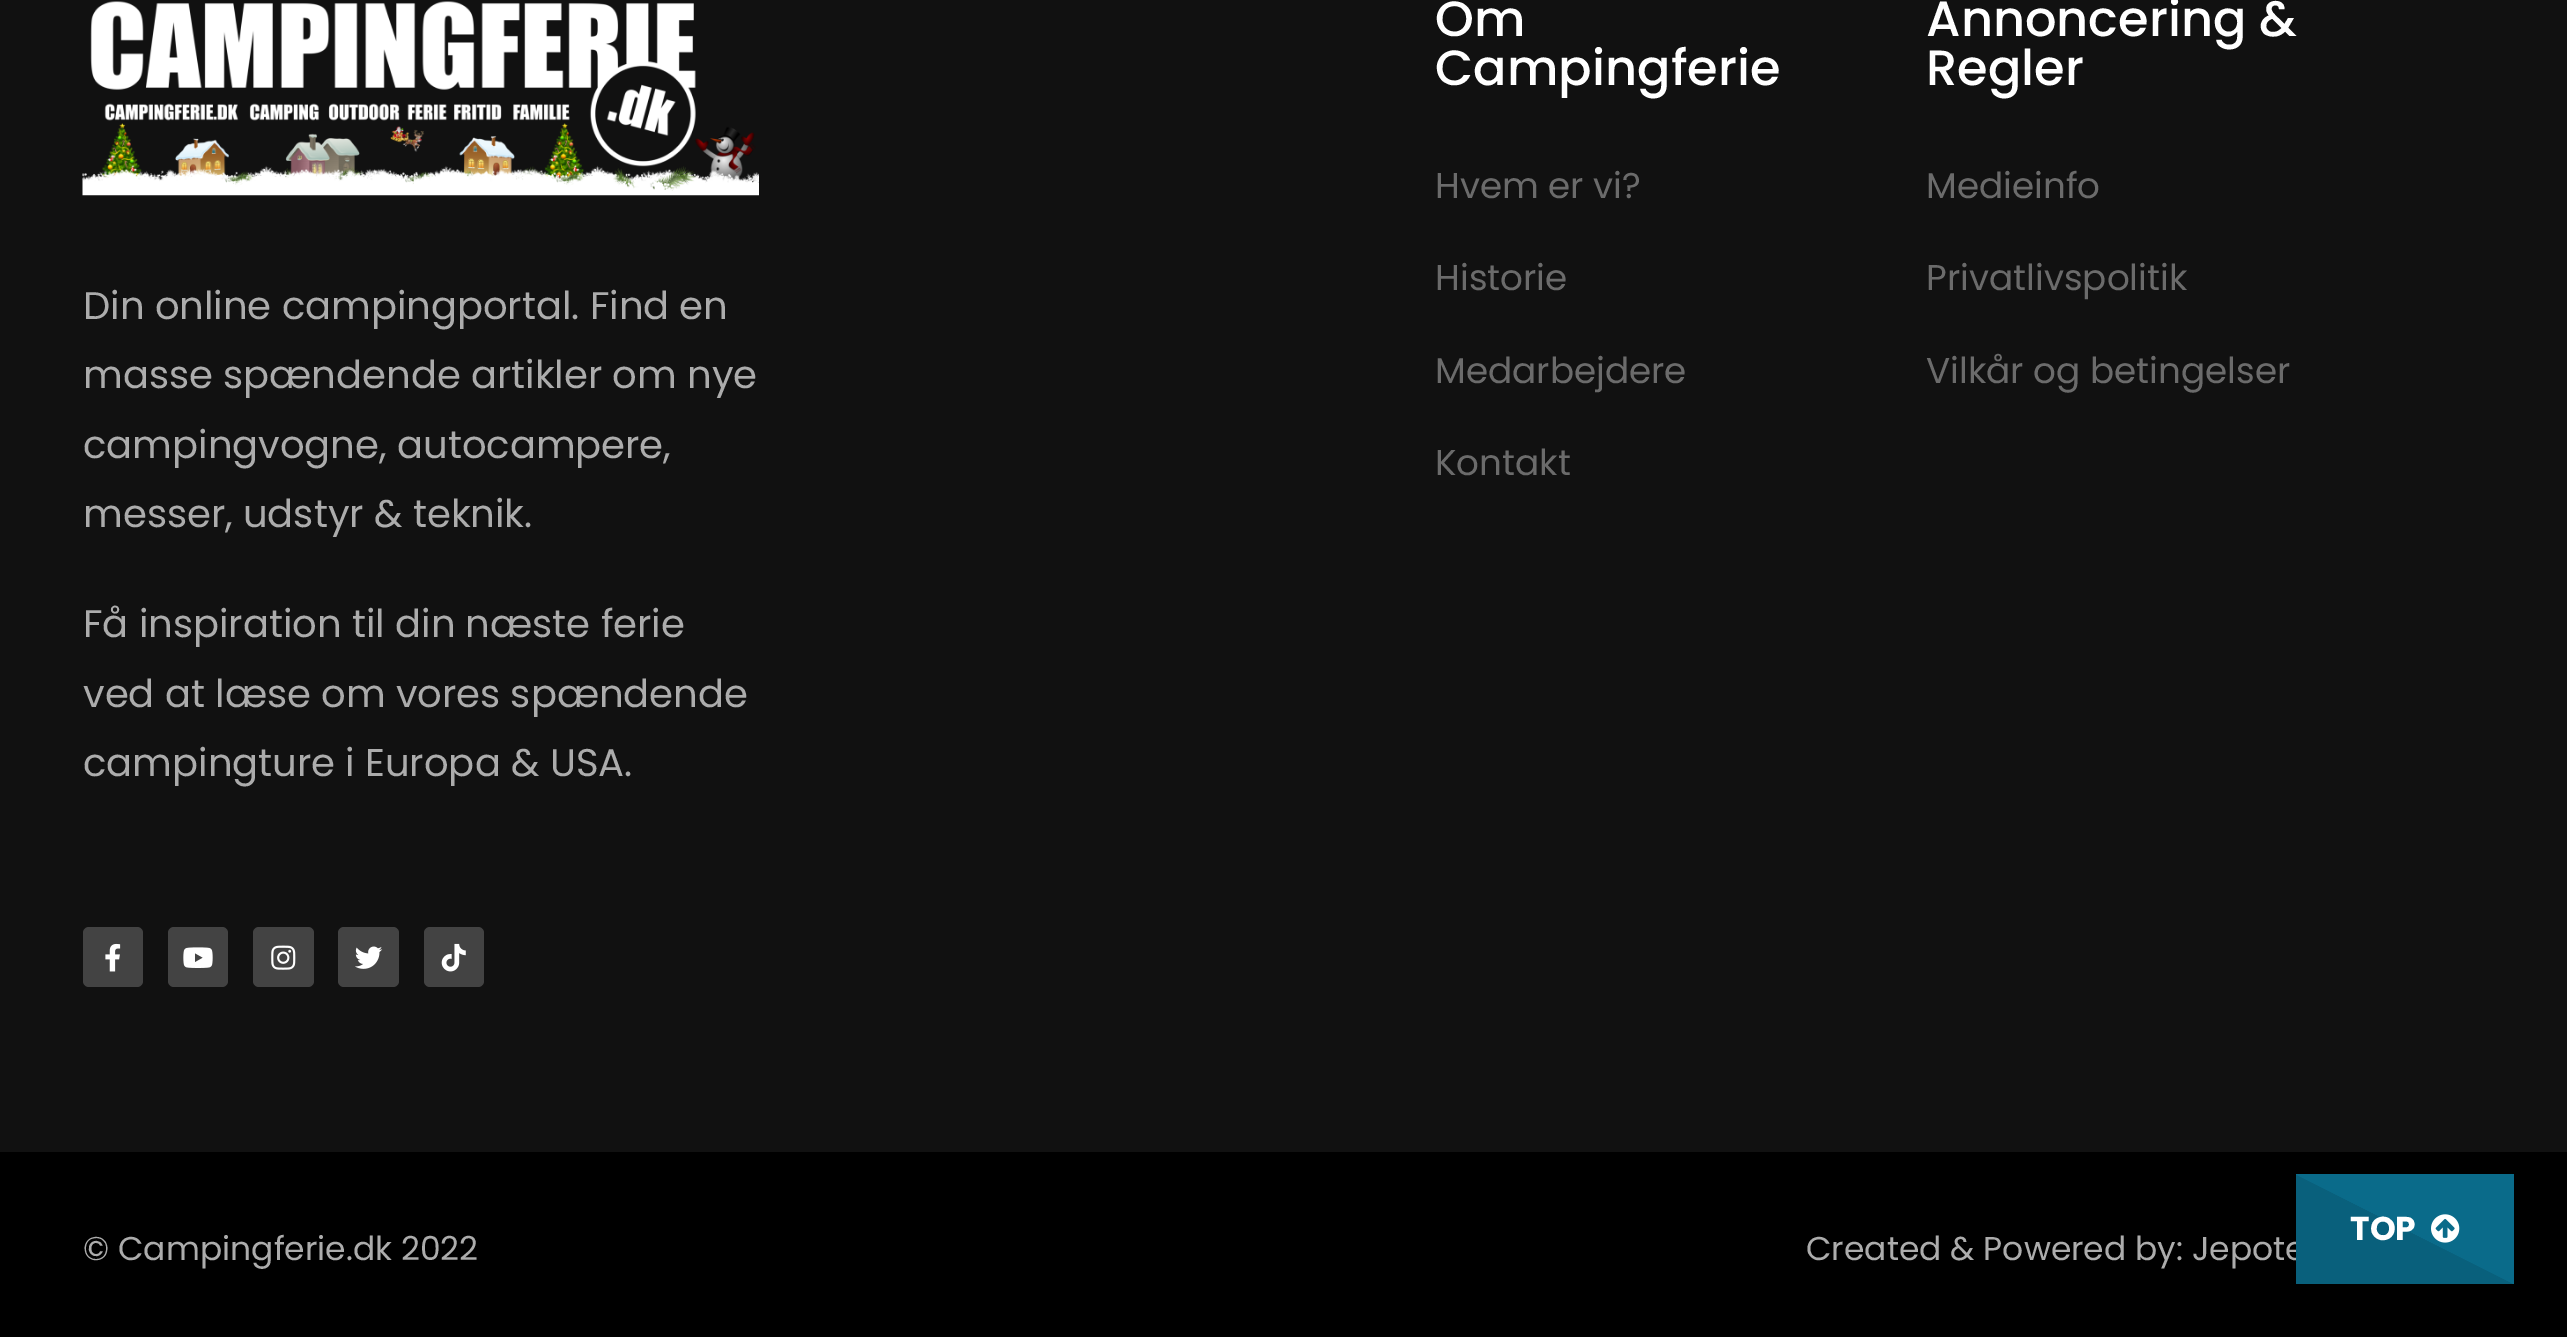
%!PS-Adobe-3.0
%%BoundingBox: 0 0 2567 1337
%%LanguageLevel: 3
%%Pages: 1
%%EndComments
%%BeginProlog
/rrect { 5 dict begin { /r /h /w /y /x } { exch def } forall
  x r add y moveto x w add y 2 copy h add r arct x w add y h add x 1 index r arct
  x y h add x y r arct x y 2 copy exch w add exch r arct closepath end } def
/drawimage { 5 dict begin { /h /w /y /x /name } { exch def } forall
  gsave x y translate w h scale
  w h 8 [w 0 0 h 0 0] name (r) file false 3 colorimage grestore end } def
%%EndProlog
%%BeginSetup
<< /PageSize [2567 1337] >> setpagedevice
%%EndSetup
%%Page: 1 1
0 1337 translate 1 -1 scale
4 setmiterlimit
0.067 setgray
0 0 2567 1337 rectfill
(images/1.raw) 82 1 677 195 drawimage
0.263 setgray
83 927 60 60 6 rrect fill
(images/2.raw) 105 943 16 29 drawimage
168 927 60 60 6 rrect fill
(images/3.raw) 183 947 30 21 drawimage
253 927 61 60 6 rrect fill
(images/4.raw) 271 945 25 25 drawimage
338 927 61 60 6 rrect fill
(images/5.raw) 355 946 28 23 drawimage
424 927 60 60 6 rrect fill
(images/6.raw) 441 943 25 29 drawimage
0 setgray
0 1152 2567 185 rectfill
/Poppins-Medium [49.5 0 0 -49.5 0 0] selectfont
1 setgray
1435 36 moveto (Om) show
1435 85 moveto (Campingferie) show
/Poppins-Regular [35.75 0 0 -35.75 0 0] selectfont
0.42 setgray
1435 198 moveto (Hvem er vi?) show
1435 290 moveto (Historie) show
1435 383 moveto (Medarbejdere) show
1435 475 moveto (Kontakt) show
/Poppins-Medium [49.5 0 0 -49.5 0 0] selectfont
1 setgray
1926 36 moveto (Annoncering &) show
1926 85 moveto (Regler) show
/Poppins-Regular [35.75 0 0 -35.75 0 0] selectfont
0.42 setgray
1926 198 moveto (Medieinfo) show
1926 290 moveto (Privatlivspolitik) show
1926 383 moveto (Vilkår og betingelser) show
/Poppins-Regular [38.5 0 0 -38.5 0 0] selectfont
0.675 setgray
83 319 moveto (Din online campingportal. Find en) show
83 388 moveto (masse spændende artikler om nye) show
83 458 moveto (campingvogne, autocampere,) show
83 527 moveto (messer, udstyr & teknik.) show
83 637 moveto (Få inspiration til din næste ferie) show
83 707 moveto (ved at læse om vores spændende) show
83 776 moveto (campingture i Europa & USA.) show
/Poppins-Regular [33 0 0 -33 0 0] selectfont
83 1260 moveto (© Campingferie.dk 2022) show
1806 1260 moveto (Created & Powered by: Jepote) show
gsave newpath 2296 1174 moveto 2514 1174 lineto 2514 1284 lineto 2296 1284 lineto closepath clip newpath
<< /ShadingType 2 /ColorSpace /DeviceRGB /Coords [2449 1142 2361 1317] /Extend [true true] /Function << /FunctionType 3 /Domain [0 1] /Functions [<< /FunctionType 2 /Domain [0 1] /C0 [0.039 0.42 0.541] /C1 [0.039 0.42 0.541] /N 1 >> << /FunctionType 2 /Domain [0 1] /C0 [0.035 0.376 0.486] /C1 [0.035 0.376 0.486] /N 1 >>] /Bounds [0.5] /Encode [0 1 0 1] >> >> shfill grestore
/Poppins-Bold [33 0 0 -33 0 0] selectfont
1 setgray
2350 1240 moveto (TOP) show
(images/7.raw) 2431 1214 29 29 drawimage
showpage
%%EOF
